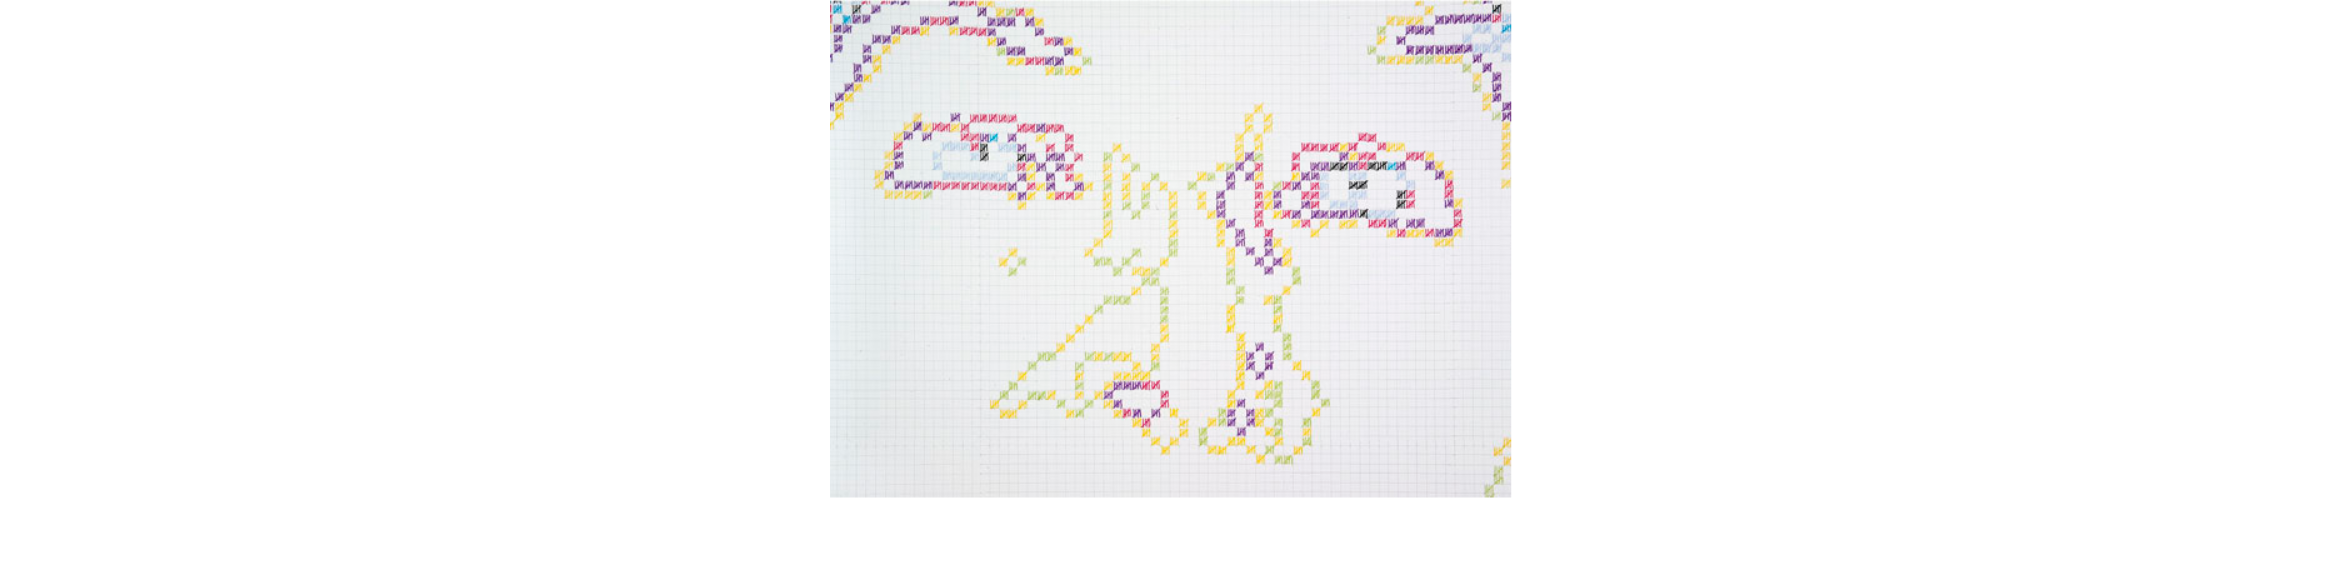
%!PS-Adobe-3.0
%%BoundingBox: 0 0 2341 561
%%LanguageLevel: 3
%%Pages: 1
%%EndComments
%%BeginProlog
/drawimage { 5 dict begin { /h /w /y /x /name } { exch def } forall
  gsave x y translate w h scale
  w h 8 [w 0 0 h 0 0] name (r) file false 3 colorimage grestore end } def
%%EndProlog
%%BeginSetup
<< /PageSize [2341 561] >> setpagedevice
%%EndSetup
%%Page: 1 1
0 561 translate 1 -1 scale
4 setmiterlimit
1 setgray
0 0 2341 561 rectfill
(images/1.raw) 830 0 682 498 drawimage
showpage
%%EOF
